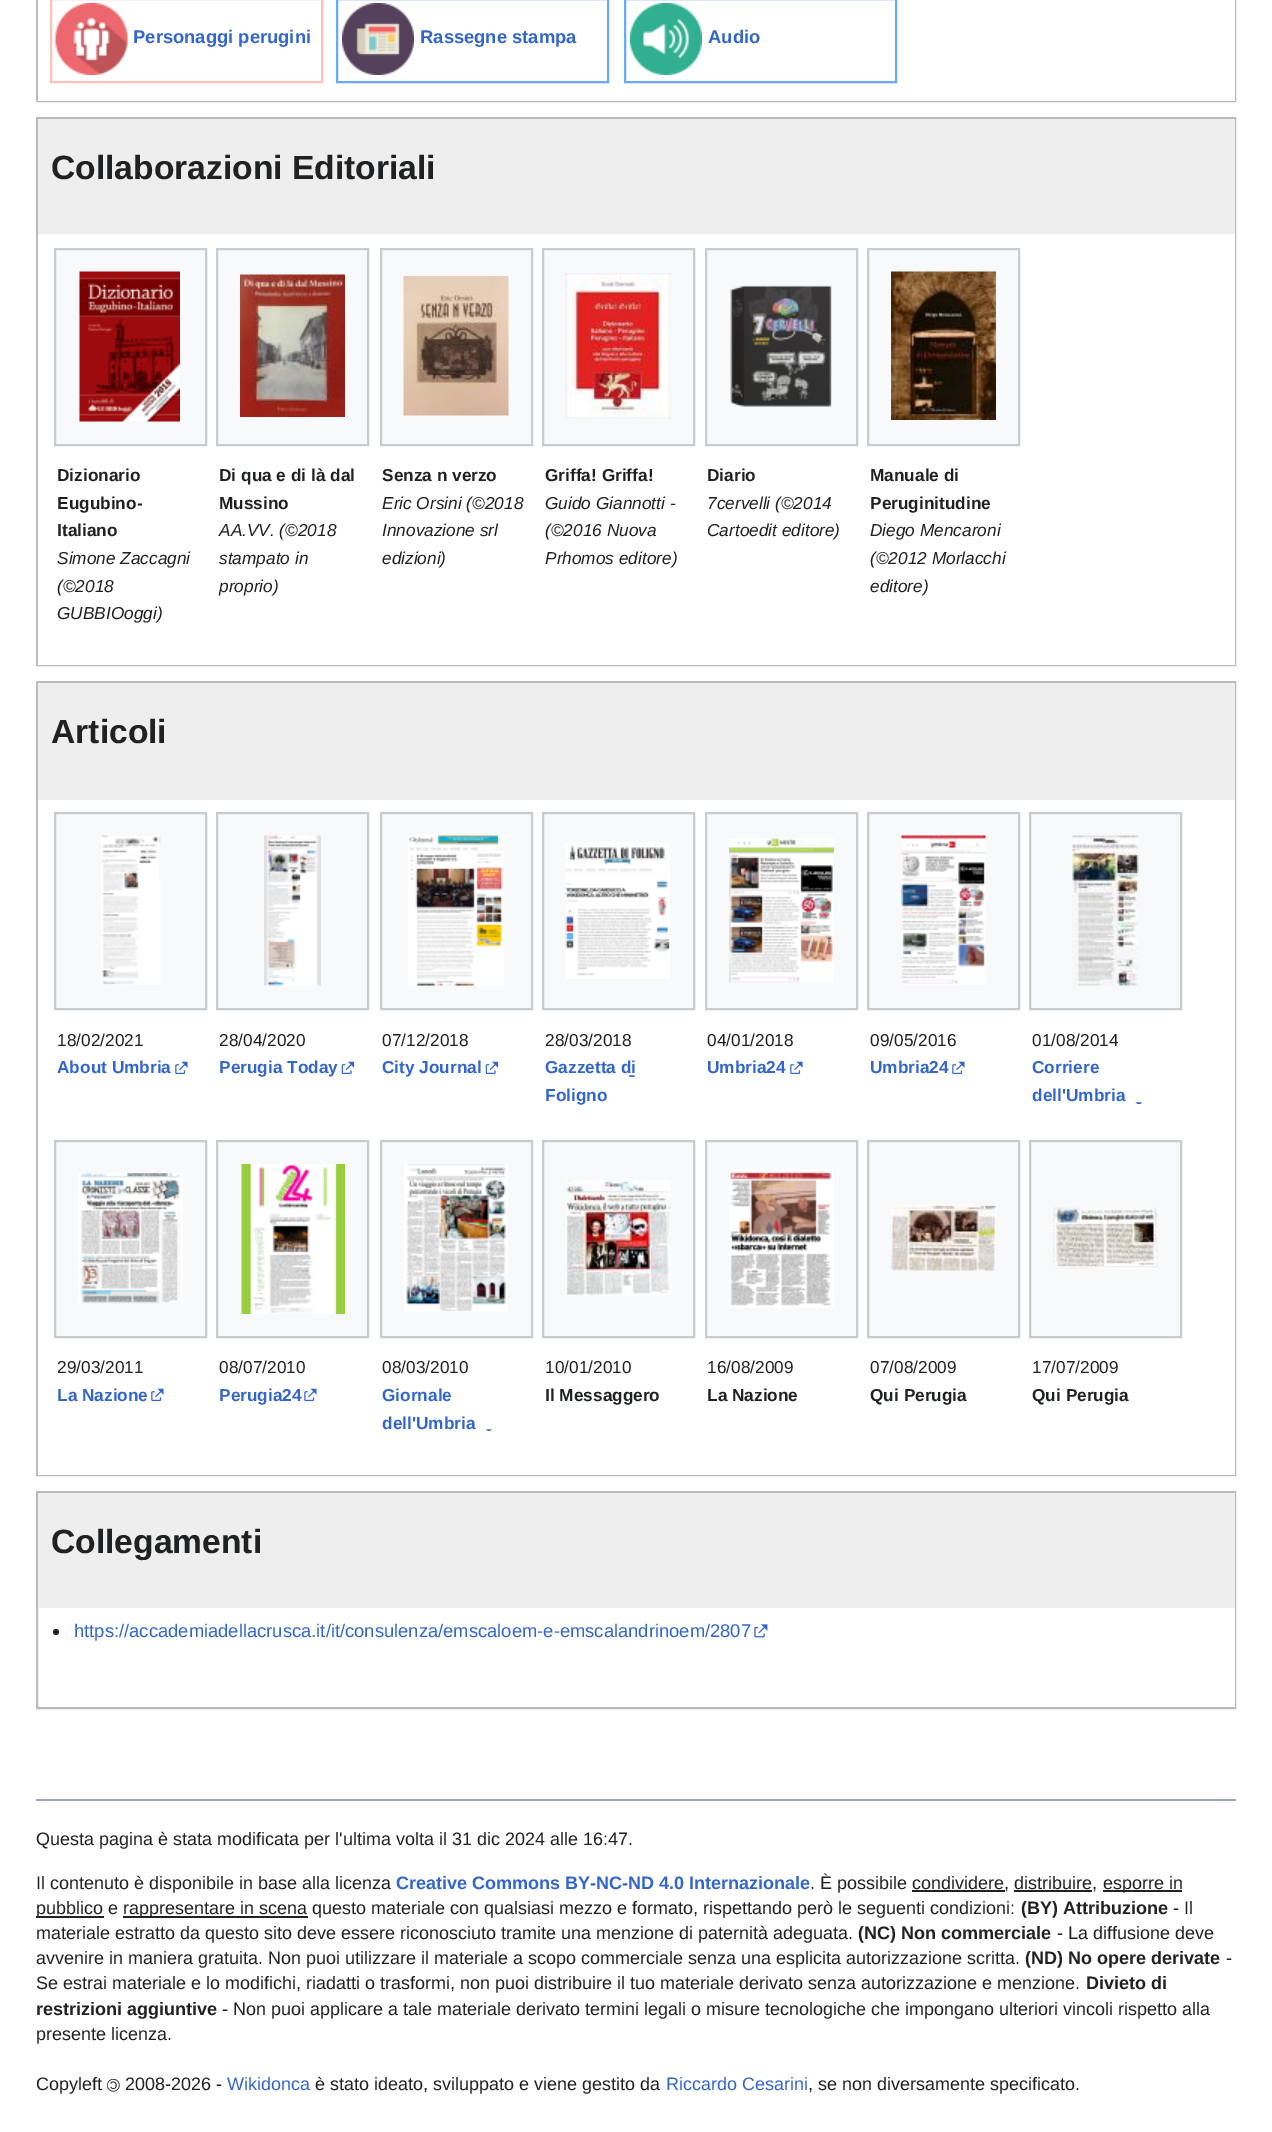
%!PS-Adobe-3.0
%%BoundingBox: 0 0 1272 2132
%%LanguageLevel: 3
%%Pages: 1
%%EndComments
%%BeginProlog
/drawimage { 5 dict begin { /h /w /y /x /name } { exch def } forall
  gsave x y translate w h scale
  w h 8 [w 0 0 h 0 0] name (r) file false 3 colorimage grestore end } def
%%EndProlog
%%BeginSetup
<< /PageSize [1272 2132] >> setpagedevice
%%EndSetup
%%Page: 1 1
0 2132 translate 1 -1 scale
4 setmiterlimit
1 setgray
0 0 1272 2132 rectfill
0.733 setgray
2 setlinewidth
37 -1 1198 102 rectstroke
1 setgray
38 0 1197 101 rectfill
1 0.753 0.714 setrgbcolor
51 -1 271 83 rectstroke
(images/1.raw) 55 3 73 72 drawimage
0.412 0.663 0.976 setrgbcolor
337 -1 271 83 rectstroke
(images/2.raw) 342 3 72 72 drawimage
625 -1 271 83 rectstroke
(images/3.raw) 630 3 72 72 drawimage
0.733 setgray
37 118 1198 547 rectstroke
0.933 setgray
38 119 1197 115 rectfill
1 setgray
38 234 1197 431 rectfill
0.973 0.976 0.98 setrgbcolor
newpath 55 249 moveto 206 249 lineto 206 445 lineto 55 445 lineto closepath gsave fill grestore
0.784 0.8 0.82 setrgbcolor
stroke
(images/4.raw) 79 271 101 151 drawimage
0.973 0.976 0.98 setrgbcolor
newpath 217 249 moveto 368 249 lineto 368 445 lineto 217 445 lineto closepath gsave fill grestore
0.784 0.8 0.82 setrgbcolor
stroke
(images/5.raw) 240 274 105 143 drawimage
0.973 0.976 0.98 setrgbcolor
newpath 381 249 moveto 532 249 lineto 532 445 lineto 381 445 lineto closepath gsave fill grestore
0.784 0.8 0.82 setrgbcolor
stroke
(images/6.raw) 403 276 106 140 drawimage
0.973 0.976 0.98 setrgbcolor
newpath 543 249 moveto 694 249 lineto 694 445 lineto 543 445 lineto closepath gsave fill grestore
0.784 0.8 0.82 setrgbcolor
stroke
(images/7.raw) 565 273 106 146 drawimage
0.973 0.976 0.98 setrgbcolor
newpath 706 249 moveto 857 249 lineto 857 445 lineto 706 445 lineto closepath gsave fill grestore
0.784 0.8 0.82 setrgbcolor
stroke
(images/8.raw) 730 285 102 122 drawimage
0.973 0.976 0.98 setrgbcolor
newpath 868 249 moveto 1019 249 lineto 1019 445 lineto 868 445 lineto closepath gsave fill grestore
0.784 0.8 0.82 setrgbcolor
stroke
(images/9.raw) 891 271 105 149 drawimage
0.733 setgray
37 682 1198 793 rectstroke
0.933 setgray
38 683 1197 117 rectfill
1 setgray
38 800 1197 675 rectfill
0.973 0.976 0.98 setrgbcolor
newpath 55 813 moveto 206 813 lineto 206 1009 lineto 55 1009 lineto closepath gsave fill grestore
0.784 0.8 0.82 setrgbcolor
stroke
(images/10.raw) 101 835 60 150 drawimage
(images/11.raw) 175 1061 13 13 drawimage
0.973 0.976 0.98 setrgbcolor
newpath 217 813 moveto 368 813 lineto 368 1009 lineto 217 1009 lineto closepath gsave fill grestore
0.784 0.8 0.82 setrgbcolor
stroke
(images/12.raw) 264 835 57 151 drawimage
(images/13.raw) 341 1061 14 13 drawimage
0.973 0.976 0.98 setrgbcolor
newpath 381 813 moveto 532 813 lineto 532 1009 lineto 381 1009 lineto closepath gsave fill grestore
0.784 0.8 0.82 setrgbcolor
stroke
(images/14.raw) 408 835 96 151 drawimage
(images/13.raw) 485 1061 14 13 drawimage
0.973 0.976 0.98 setrgbcolor
newpath 543 813 moveto 694 813 lineto 694 1009 lineto 543 1009 lineto closepath gsave fill grestore
0.784 0.8 0.82 setrgbcolor
stroke
(images/15.raw) 565 842 105 137 drawimage
(images/16.raw) 628 1075 7 2 drawimage
0.973 0.976 0.98 setrgbcolor
newpath 706 813 moveto 857 813 lineto 857 1009 lineto 706 1009 lineto closepath gsave fill grestore
0.784 0.8 0.82 setrgbcolor
stroke
(images/17.raw) 729 838 105 145 drawimage
(images/11.raw) 790 1061 13 13 drawimage
0.973 0.976 0.98 setrgbcolor
newpath 868 813 moveto 1019 813 lineto 1019 1009 lineto 868 1009 lineto closepath gsave fill grestore
0.784 0.8 0.82 setrgbcolor
stroke
(images/18.raw) 901 835 85 150 drawimage
(images/19.raw) 952 1061 13 13 drawimage
0.973 0.976 0.98 setrgbcolor
newpath 1030 813 moveto 1181 813 lineto 1181 1009 lineto 1030 1009 lineto closepath gsave fill grestore
0.784 0.8 0.82 setrgbcolor
stroke
(images/20.raw) 1072 835 67 151 drawimage
(images/21.raw) 1135 1102 7 2 drawimage
0.973 0.976 0.98 setrgbcolor
newpath 55 1141 moveto 206 1141 lineto 206 1337 lineto 55 1337 lineto closepath gsave fill grestore
0.784 0.8 0.82 setrgbcolor
stroke
(images/22.raw) 78 1173 105 131 drawimage
(images/23.raw) 151 1388 13 14 drawimage
0.973 0.976 0.98 setrgbcolor
newpath 217 1141 moveto 368 1141 lineto 368 1337 lineto 217 1337 lineto closepath gsave fill grestore
0.784 0.8 0.82 setrgbcolor
stroke
(images/24.raw) 241 1164 104 150 drawimage
(images/23.raw) 304 1388 13 14 drawimage
0.973 0.976 0.98 setrgbcolor
newpath 381 1141 moveto 532 1141 lineto 532 1337 lineto 381 1337 lineto closepath gsave fill grestore
0.784 0.8 0.82 setrgbcolor
stroke
(images/25.raw) 404 1164 104 148 drawimage
(images/26.raw) 486 1429 6 2 drawimage
0.973 0.976 0.98 setrgbcolor
newpath 543 1141 moveto 694 1141 lineto 694 1337 lineto 543 1337 lineto closepath gsave fill grestore
0.784 0.8 0.82 setrgbcolor
stroke
(images/27.raw) 565 1180 106 116 drawimage
0.973 0.976 0.98 setrgbcolor
newpath 706 1141 moveto 857 1141 lineto 857 1337 lineto 706 1337 lineto closepath gsave fill grestore
0.784 0.8 0.82 setrgbcolor
stroke
(images/28.raw) 729 1169 105 139 drawimage
0.973 0.976 0.98 setrgbcolor
newpath 868 1141 moveto 1019 1141 lineto 1019 1337 lineto 868 1337 lineto closepath gsave fill grestore
0.784 0.8 0.82 setrgbcolor
stroke
(images/29.raw) 891 1204 105 68 drawimage
0.973 0.976 0.98 setrgbcolor
newpath 1030 1141 moveto 1181 1141 lineto 1181 1337 lineto 1030 1337 lineto closepath gsave fill grestore
0.784 0.8 0.82 setrgbcolor
stroke
(images/30.raw) 1053 1207 105 62 drawimage
0.733 setgray
37 1492 1198 216 rectstroke
0.933 setgray
38 1493 1197 115 rectfill
1 setgray
1234 1608 1 99 rectfill
0.125 0.129 0.133 setrgbcolor
newpath 56 1632 3 0 360 arc closepath fill
(images/31.raw) 754 1624 14 14 drawimage
0.635 0.663 0.694 setrgbcolor
36 1799 1200 2 rectfill
0.125 0.129 0.133 setrgbcolor
1103 1890 79 2 rectfill
912 1890 93 2 rectfill
1014 1890 78 2 rectfill
36 1916 68 2 rectfill
123 1916 185 2 rectfill
/LiberationSans-Bold [18.4 0 0 -18.4 0 0] selectfont
0.2 0.4 0.8 setrgbcolor
133 43 moveto (Personaggi perugini) show
420 43 moveto (Rassegne stampa) show
708 43 moveto (Audio) show
/LiberationSans-Bold [33.6 0 0 -33.6 0 0] selectfont
0.125 0.129 0.133 setrgbcolor
51 179 moveto (Collaborazioni Editoriali) show
/LiberationSans-Bold [17.25 0 0 -17.25 0 0] selectfont
57 481 moveto (Dizionario) show
57 509 moveto (Eugubino-) show
57 536 moveto (Italiano) show
/LiberationSans-Italic [17.25 0 0 -17.25 0 0] selectfont
57 564 moveto (Simone Zaccagni) show
57 592 moveto (\(©2018) show
57 619 moveto (GUBBIOoggi\)) show
/LiberationSans-Bold [17.25 0 0 -17.25 0 0] selectfont
219 481 moveto (Di qua e di là dal) show
219 509 moveto (Mussino) show
/LiberationSans-Italic [17.25 0 0 -17.25 0 0] selectfont
219 536 moveto (AA.VV. \(©2018) show
219 564 moveto (stampato in) show
219 592 moveto (proprio\)) show
/LiberationSans-Bold [17.25 0 0 -17.25 0 0] selectfont
382 481 moveto (Senza n verzo) show
/LiberationSans-Italic [17.25 0 0 -17.25 0 0] selectfont
382 509 moveto (Eric Orsini \(©2018) show
382 536 moveto (Innovazione srl) show
382 564 moveto (edizioni\)) show
/LiberationSans-Bold [17.25 0 0 -17.25 0 0] selectfont
545 481 moveto (Griffa! Griffa!) show
/LiberationSans-Italic [17.25 0 0 -17.25 0 0] selectfont
545 509 moveto (Guido Giannotti -) show
545 536 moveto (\(©2016 Nuova) show
545 564 moveto (Prhomos editore\)) show
/LiberationSans-Bold [17.25 0 0 -17.25 0 0] selectfont
707 481 moveto (Diario) show
/LiberationSans-Italic [17.25 0 0 -17.25 0 0] selectfont
707 509 moveto (7cervelli \(©2014) show
707 536 moveto (Cartoedit editore\)) show
/LiberationSans-Bold [17.25 0 0 -17.25 0 0] selectfont
870 481 moveto (Manuale di) show
870 509 moveto (Peruginitudine) show
/LiberationSans-Italic [17.25 0 0 -17.25 0 0] selectfont
870 536 moveto (Diego Mencaroni) show
870 564 moveto (\(©2012 Morlacchi) show
870 592 moveto (editore\)) show
/LiberationSans-Bold [33.6 0 0 -33.6 0 0] selectfont
51 743 moveto (Articoli) show
/LiberationSans-Regular [17.25 0 0 -17.25 0 0] selectfont
57 1046 moveto (18/02/2021) show
/LiberationSans-Bold [17.25 0 0 -17.25 0 0] selectfont
0.2 0.4 0.8 setrgbcolor
57 1073 moveto (About Umbria) show
/LiberationSans-Regular [17.25 0 0 -17.25 0 0] selectfont
0.125 0.129 0.133 setrgbcolor
219 1046 moveto (28/04/2020) show
/LiberationSans-Bold [17.25 0 0 -17.25 0 0] selectfont
0.2 0.4 0.8 setrgbcolor
219 1073 moveto (Perugia Today) show
/LiberationSans-Regular [17.25 0 0 -17.25 0 0] selectfont
0.125 0.129 0.133 setrgbcolor
382 1046 moveto (07/12/2018) show
/LiberationSans-Bold [17.25 0 0 -17.25 0 0] selectfont
0.2 0.4 0.8 setrgbcolor
382 1073 moveto (City Journal) show
/LiberationSans-Regular [17.25 0 0 -17.25 0 0] selectfont
0.125 0.129 0.133 setrgbcolor
545 1046 moveto (28/03/2018) show
/LiberationSans-Bold [17.25 0 0 -17.25 0 0] selectfont
0.2 0.4 0.8 setrgbcolor
545 1073 moveto (Gazzetta di) show
545 1101 moveto (Foligno) show
/LiberationSans-Regular [17.25 0 0 -17.25 0 0] selectfont
0.125 0.129 0.133 setrgbcolor
707 1046 moveto (04/01/2018) show
/LiberationSans-Bold [17.25 0 0 -17.25 0 0] selectfont
0.2 0.4 0.8 setrgbcolor
707 1073 moveto (Umbria24) show
/LiberationSans-Regular [17.25 0 0 -17.25 0 0] selectfont
0.125 0.129 0.133 setrgbcolor
870 1046 moveto (09/05/2016) show
/LiberationSans-Bold [17.25 0 0 -17.25 0 0] selectfont
0.2 0.4 0.8 setrgbcolor
870 1073 moveto (Umbria24) show
/LiberationSans-Regular [17.25 0 0 -17.25 0 0] selectfont
0.125 0.129 0.133 setrgbcolor
1032 1046 moveto (01/08/2014) show
/LiberationSans-Bold [17.25 0 0 -17.25 0 0] selectfont
0.2 0.4 0.8 setrgbcolor
1032 1073 moveto (Corriere) show
1032 1101 moveto (dell'Umbria) show
/LiberationSans-Regular [17.25 0 0 -17.25 0 0] selectfont
0.125 0.129 0.133 setrgbcolor
57 1373 moveto (29/03/2011) show
/LiberationSans-Bold [17.25 0 0 -17.25 0 0] selectfont
0.2 0.4 0.8 setrgbcolor
57 1401 moveto (La Nazione) show
/LiberationSans-Regular [17.25 0 0 -17.25 0 0] selectfont
0.125 0.129 0.133 setrgbcolor
219 1373 moveto (08/07/2010) show
/LiberationSans-Bold [17.25 0 0 -17.25 0 0] selectfont
0.2 0.4 0.8 setrgbcolor
219 1401 moveto (Perugia24) show
/LiberationSans-Regular [17.25 0 0 -17.25 0 0] selectfont
0.125 0.129 0.133 setrgbcolor
382 1373 moveto (08/03/2010) show
/LiberationSans-Bold [17.25 0 0 -17.25 0 0] selectfont
0.2 0.4 0.8 setrgbcolor
382 1401 moveto (Giornale) show
382 1429 moveto (dell'Umbria) show
/LiberationSans-Regular [17.25 0 0 -17.25 0 0] selectfont
0.125 0.129 0.133 setrgbcolor
545 1373 moveto (10/01/2010) show
/LiberationSans-Bold [17.25 0 0 -17.25 0 0] selectfont
545 1401 moveto (Il Messaggero) show
/LiberationSans-Regular [17.25 0 0 -17.25 0 0] selectfont
707 1373 moveto (16/08/2009) show
/LiberationSans-Bold [17.25 0 0 -17.25 0 0] selectfont
707 1401 moveto (La Nazione) show
/LiberationSans-Regular [17.25 0 0 -17.25 0 0] selectfont
870 1373 moveto (07/08/2009) show
/LiberationSans-Bold [17.25 0 0 -17.25 0 0] selectfont
870 1401 moveto (Qui Perugia) show
/LiberationSans-Regular [17.25 0 0 -17.25 0 0] selectfont
1032 1373 moveto (17/07/2009) show
/LiberationSans-Bold [17.25 0 0 -17.25 0 0] selectfont
1032 1401 moveto (Qui Perugia) show
/LiberationSans-Bold [33.6 0 0 -33.6 0 0] selectfont
51 1553 moveto (Collegamenti) show
/LiberationSans-Regular [18.4 0 0 -18.4 0 0] selectfont
0.2 0.4 0.8 setrgbcolor
74 1637 moveto (https://accademiadellacrusca.it/it/consulenza/emscaloem-e-emscalandrinoem/2807) show
/LiberationSans-Regular [18 0 0 -18 0 0] selectfont
0.125 0.129 0.133 setrgbcolor
36 1845 moveto (Questa pagina è stata modificata per l'ultima volta il 31 dic 2024 alle 16:47.) show
36 1889 moveto (Il contenuto è disponibile in base alla licenza) show
/LiberationSans-Bold [18 0 0 -18 0 0] selectfont
0.2 0.4 0.8 setrgbcolor
396 1889 moveto (Creative Commons BY-NC-ND 4.0 Internazionale) show
/LiberationSans-Regular [18 0 0 -18 0 0] selectfont
0.125 0.129 0.133 setrgbcolor
810 1889 moveto (. È possibile condividere, distribuire,) show
1103 1889 moveto (esporre in) show
36 1914 moveto (pubblico e) show
123 1914 moveto (rappresentare in scena questo materiale con qualsiasi mezzo e formato, rispettando però le seguenti condizioni:) show
/LiberationSans-Bold [18 0 0 -18 0 0] selectfont
1021 1914 moveto (\(BY\) Attribuzione) show
/LiberationSans-Regular [18 0 0 -18 0 0] selectfont
1173 1914 moveto (- Il) show
36 1939 moveto (materiale estratto da questo sito deve essere riconosciuto tramite una menzione di paternità adeguata.) show
/LiberationSans-Bold [18 0 0 -18 0 0] selectfont
858 1939 moveto (\(NC\) Non commerciale) show
/LiberationSans-Regular [18 0 0 -18 0 0] selectfont
1057 1939 moveto (- La diffusione deve) show
36 1964 moveto (avvenire in maniera gratuita. Non puoi utilizzare il materiale a scopo commerciale senza una esplicita autorizzazione scritta.) show
/LiberationSans-Bold [18 0 0 -18 0 0] selectfont
1025 1964 moveto (\(ND\) No opere derivate) show
/LiberationSans-Regular [18 0 0 -18 0 0] selectfont
1226 1964 moveto (-) show
36 1989 moveto (Se estrai materiale e lo modifichi, riadatti o trasformi, non puoi distribuire il tuo materiale derivato senza autorizzazione e menzione.) show
/LiberationSans-Bold [18 0 0 -18 0 0] selectfont
1086 1989 moveto (Divieto di) show
36 2015 moveto (restrizioni aggiuntive) show
/LiberationSans-Regular [18 0 0 -18 0 0] selectfont
222 2015 moveto (- Non puoi applicare a tale materiale derivato termini legali o misure tecnologiche che impongano ulteriori vincoli rispetto alla) show
36 2040 moveto (presente licenza.) show
36 2090 moveto (Copyleft) show
gsave 120 2079 translate 180 rotate 0 0 moveto (©) show grestore
125 2090 moveto (2008-2026 -) show
0.2 0.4 0.8 setrgbcolor
227 2090 moveto (Wikidonca) show
0.125 0.129 0.133 setrgbcolor
315 2090 moveto (è stato ideato, sviluppato e viene gestito da) show
0.2 0.4 0.8 setrgbcolor
666 2090 moveto (Riccardo Cesarini) show
0.125 0.129 0.133 setrgbcolor
808 2090 moveto (, se non diversamente specificato.) show
showpage
%%EOF
